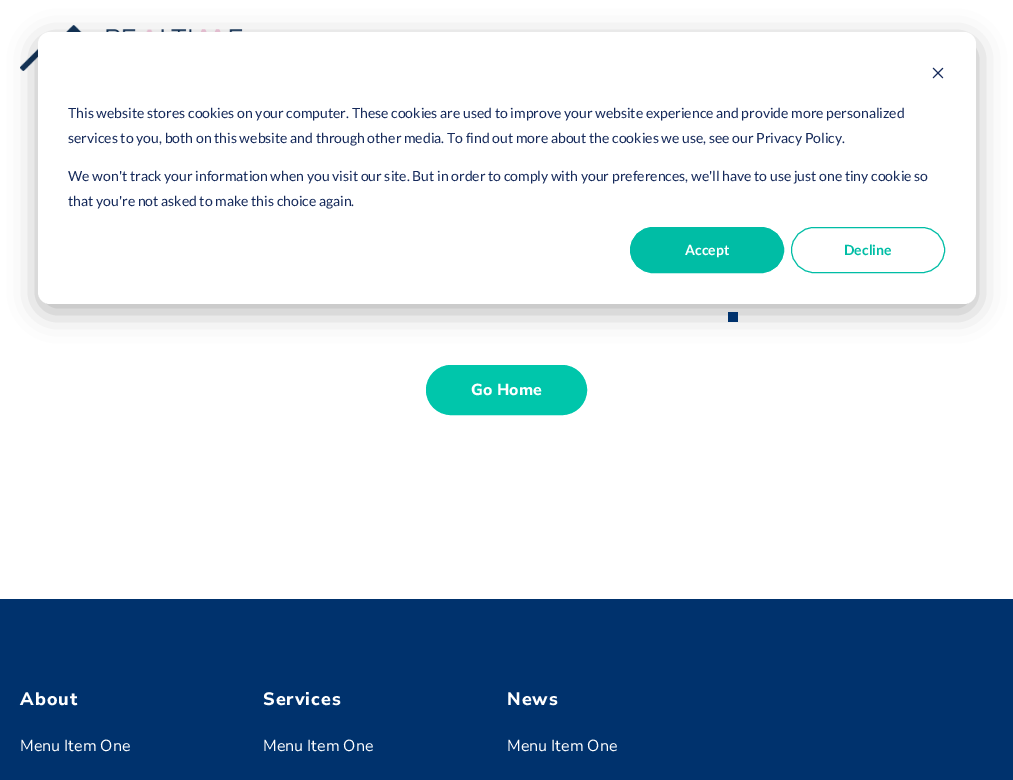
%!PS-Adobe-3.0
%%BoundingBox: 0 0 1013 780
%%LanguageLevel: 3
%%Pages: 1
%%EndComments
%%BeginProlog
/setalpha { dup .setfillconstantalpha .setstrokeconstantalpha } def
/rrect { 5 dict begin { /r /h /w /y /x } { exch def } forall
  x r add y moveto x w add y 2 copy h add r arct x w add y h add x 1 index r arct
  x y h add x y r arct x y 2 copy exch w add exch r arct closepath end } def
/softshadow { 12 dict begin { /a /b /q /h /w /y /x } { exch def } forall gsave /was 0 def
  9 -2 -9 { dup b mul 4 div /e exch def 1 sub .425 mul 2.718 exch exp 1 add a .99 .min exch div /now exch def
    1 1 now sub 1 was sub div sub setalpha /was now def
    w h .min e 2 mul add 0 gt { x e sub y e sub w e 2 mul add h e 2 mul add
      q e add b .6 mul add w h .min 2 div e add .min 0 .max rrect fill } if } for grestore end } def
/drawimage { 5 dict begin { /h /w /y /x /name } { exch def } forall
  gsave x y translate w h scale
  w h 8 [w 0 0 h 0 0] name (r) file false 3 colorimage grestore end } def
%%EndProlog
%%BeginSetup
<< /PageSize [1013 780] /PageUsesTransparency true >> setpagedevice
%%EndSetup
%%Page: 1 1
0 .pushpdf14devicefilter
0 780 translate 1 -1 scale
4 setmiterlimit
1 setgray
0 0 1013 780 rectfill
(images/2.raw) 20 25 223 46 drawimage
0 setgray
38 40 938 272 12 14 0.28 softshadow
1 setgray
38 32 938 272 12 rrect fill
(images/1.raw) 932 67 12 12 drawimage
0 0.741 0.647 setrgbcolor
630.5 227.5 153 45 22.5 rrect gsave fill grestore
stroke
791.5 227.5 153 45 22.5 rrect stroke
0 0.776 0.671 setrgbcolor
426.5 365.5 160 49 24.5 rrect gsave fill grestore
stroke
0 0.196 0.427 setrgbcolor
0 599 1013 181 rectfill
/Lato-Regular [14 0 0 -14 0 0] selectfont
0.082 0.161 0.353 setrgbcolor
68 118 moveto (This website stores cookies on your computer. These cookies are used to improve your website experience and provide more personalized) show
68 143 moveto (services to you, both on this website and through other media. To find out more about the cookies we use, see our Privacy Policy.) show
68 181 moveto (We won't track your information when you visit our site. But in order to comply with your preferences, we'll have to use just one tiny cookie so) show
68 206 moveto (that you're not asked to make this choice again.) show
/Lato-Bold [14 0 0 -14 0 0] selectfont
1 setgray
685 255 moveto (Accept) show
0 0.741 0.647 setrgbcolor
844 255 moveto (Decline) show
/NunitoSans-ExtraBold [62 0 0 -62 0 0] selectfont
0 0.196 0.427 setrgbcolor
725 322 moveto (.) show
/NunitoSans-ExtraBold [16 0 0 -16 0 0] selectfont
1 setgray
471 395 moveto (Go Home) show
/NunitoSans-ExtraBold [18 0 0 -18 0 0] selectfont
20 705 moveto 1 0 (About) ashow
/NunitoSans-Regular [16 0 0 -16 0 0] selectfont
20 751 moveto (Menu Item One) show
/NunitoSans-ExtraBold [18 0 0 -18 0 0] selectfont
263 705 moveto 1 0 (Services) ashow
/NunitoSans-Regular [16 0 0 -16 0 0] selectfont
263 751 moveto (Menu Item One) show
/NunitoSans-ExtraBold [18 0 0 -18 0 0] selectfont
507 705 moveto 1 0 (News) ashow
/NunitoSans-Regular [16 0 0 -16 0 0] selectfont
507 751 moveto (Menu Item One) show
.poppdf14devicefilter showpage
%%EOF
